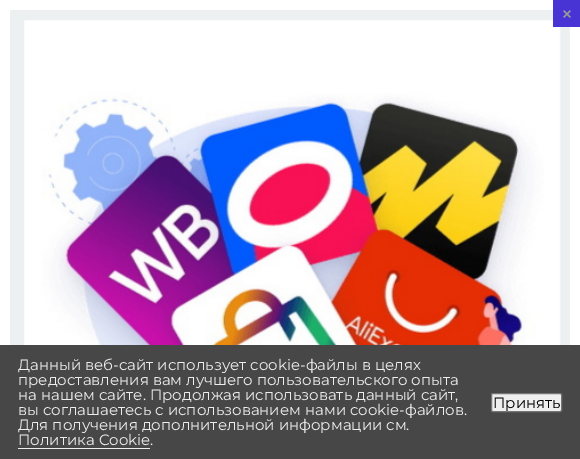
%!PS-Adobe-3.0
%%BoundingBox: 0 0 580 459
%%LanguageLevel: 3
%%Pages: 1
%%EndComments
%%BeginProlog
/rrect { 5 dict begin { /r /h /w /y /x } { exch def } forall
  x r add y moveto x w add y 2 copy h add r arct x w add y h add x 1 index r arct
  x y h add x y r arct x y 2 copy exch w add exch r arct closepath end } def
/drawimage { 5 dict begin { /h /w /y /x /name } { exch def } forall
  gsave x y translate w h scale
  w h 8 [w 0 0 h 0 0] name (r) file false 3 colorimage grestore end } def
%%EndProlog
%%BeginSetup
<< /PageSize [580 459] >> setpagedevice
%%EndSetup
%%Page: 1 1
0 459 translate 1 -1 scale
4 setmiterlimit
1 setgray
0 0 580 459 rectfill
0.925 0.941 0.945 setrgbcolor
10 10 560 335 rectfill
(images/2.raw) 24 20 537 325 drawimage
0.282 0.204 0.831 setrgbcolor
553 0 27 27 rectfill
(images/1.raw) 563 10 8 8 drawimage
0.278 setgray
0 345 580 114 rectfill
0.933 setgray
18 448 132 1 rectfill
0.937 setgray
491.5 393.5 70 18 1.5 rrect gsave fill grestore
0.463 setgray
stroke
/Montserrat-Regular [15 0 0 -15 0 0] selectfont
0.933 setgray
18 370 moveto (Данный веб-сайт использует cookie-файлы в целях) show
18 385 moveto (предоставления вам лучшего пользовательского опыта) show
18 400 moveto (на нашем сайте. Продолжая использовать данный сайт,) show
18 415 moveto (вы соглашаетесь с использованием нами cookie-файлов.) show
18 430 moveto (Для получения дополнительной информации см.) show
18 445 moveto (Политика Cookie.) show
0 setgray
493 408 moveto (Принять) show
showpage
%%EOF
